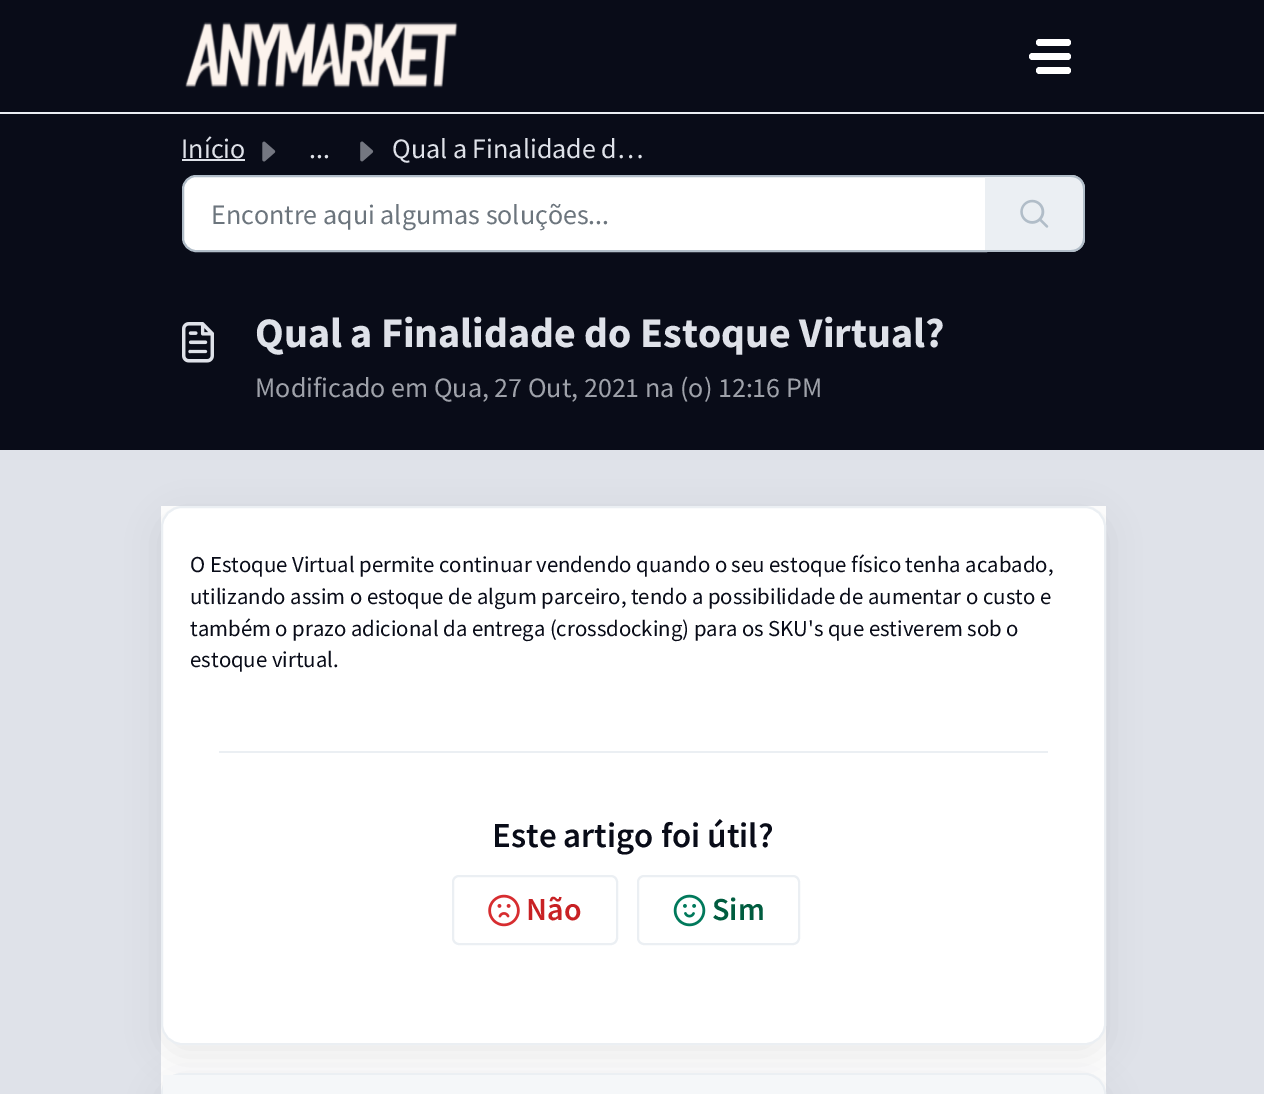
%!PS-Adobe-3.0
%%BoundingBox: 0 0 1264 1094
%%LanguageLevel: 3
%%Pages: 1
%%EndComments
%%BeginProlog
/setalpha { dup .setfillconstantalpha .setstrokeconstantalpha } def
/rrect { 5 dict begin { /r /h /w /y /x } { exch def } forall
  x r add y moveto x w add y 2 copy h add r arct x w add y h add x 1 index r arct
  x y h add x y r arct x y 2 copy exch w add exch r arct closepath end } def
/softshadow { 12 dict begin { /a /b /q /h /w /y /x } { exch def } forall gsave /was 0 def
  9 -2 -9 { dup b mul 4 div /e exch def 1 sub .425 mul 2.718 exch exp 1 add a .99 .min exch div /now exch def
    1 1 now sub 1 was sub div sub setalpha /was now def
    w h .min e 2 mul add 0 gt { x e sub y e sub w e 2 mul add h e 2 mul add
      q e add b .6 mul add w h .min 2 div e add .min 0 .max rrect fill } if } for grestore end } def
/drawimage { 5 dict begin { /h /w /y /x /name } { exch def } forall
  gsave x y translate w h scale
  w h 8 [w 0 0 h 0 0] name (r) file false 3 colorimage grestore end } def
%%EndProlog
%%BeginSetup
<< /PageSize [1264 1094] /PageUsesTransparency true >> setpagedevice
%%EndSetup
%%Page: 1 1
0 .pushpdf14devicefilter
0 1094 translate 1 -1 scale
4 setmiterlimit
0.875 0.886 0.914 setrgbcolor
0 0 1264 1094 rectfill
0.035 0.047 0.094 setrgbcolor
0 0 1264 112 rectfill
0.922 0.937 0.953 setrgbcolor
0 112 1264 2 rectfill
(images/1.raw) 185 22 273 66 drawimage
1 setgray
1036 39 35 7 3.5 rrect fill
1029 53 42 7 3.5 rrect fill
1036 67 35 7 3.5 rrect fill
0.035 0.047 0.094 setrgbcolor
0 114 1264 336 rectfill
0.875 0.886 0.914 setrgbcolor
182 159 63 2 rectfill
(images/2.raw) 262 141 14 21 drawimage
(images/3.raw) 360 141 14 21 drawimage
1 setgray
newpath 196 176 moveto 986 176 lineto 986 251 lineto 196 251 lineto 189 251 183 245 183 238 curveto 183 189 lineto 183 182 189 176 196 176 curveto closepath gsave fill grestore
0.694 0.741 0.784 setrgbcolor
2 setlinewidth
stroke
0.922 0.937 0.953 setrgbcolor
newpath 985 175 moveto 1071 175 lineto 1078.5 175 1085 181.5 1085 189 curveto 1085 238 lineto 1085 245.5 1078.5 252 1071 252 curveto 985 252 lineto closepath fill
0.694 0.741 0.784 setrgbcolor
newpath 985 175 moveto 1071 175 lineto 1079 175 1085 181 1085 189 curveto 1085 238 lineto 1085 246 1079 252 1071 252 curveto 985 252 lineto closepath 985 177 moveto 1071 177 lineto 1078 177 1083 182 1083 189 curveto 1083 238 lineto 1083 245 1078 250 1071 250 curveto 985 250 lineto closepath eofill
(images/4.raw) 1020 199 29 29 drawimage
(images/5.raw) 182 322 32 41 drawimage
1 setgray
161 506 945 588 rectfill
gsave
newpath 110 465 moveto 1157 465 lineto 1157 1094 lineto 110 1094 lineto closepath 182 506 moveto 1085 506 lineto 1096.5 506 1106 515.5 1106 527 curveto 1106 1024 lineto 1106 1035.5 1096.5 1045 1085 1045 curveto 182 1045 lineto 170.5 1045 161 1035.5 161 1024 curveto 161 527 lineto 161 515.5 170.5 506 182 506 curveto closepath eoclip newpath
0.153 0.192 0.227 setrgbcolor
161 516 945 539 21 16.5 0.1 softshadow
grestore
0.922 0.937 0.953 setrgbcolor
162 507 943 537 20 rrect stroke
219 751 829 2 rectfill
453 876 164 68 6 rrect stroke
(images/6.raw) 488 894 32 33 drawimage
638 876 161 68 6 rrect stroke
(images/7.raw) 673 894 33 33 drawimage
0.153 0.192 0.227 setrgbcolor
161 1083 945 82 21 16.5 0.1 softshadow
0.922 0.937 0.953 setrgbcolor
162 1074 943 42 20 rrect stroke
0.961 0.969 0.976 setrgbcolor
newpath 163 1075 moveto 1083 1075 lineto 1094.5 1075 1104 1084.5 1104 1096 curveto 1104 1094 lineto 1104 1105.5 1094.5 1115 1083 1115 curveto 163 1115 lineto closepath fill
/SourceSansPro-Regular [28 0 0 -28 0 0] selectfont
0.875 0.886 0.914 setrgbcolor
181 158 moveto (Início) show
309 158 moveto (...) show
392 158 moveto (Qual a Finalidade d…) show
0.424 0.459 0.49 setrgbcolor
211 224 moveto (Encontre aqui algumas soluções...) show
/SourceSansPro-Bold [42 0 0 -42 0 0] selectfont
0.875 0.886 0.914 setrgbcolor
255 347 moveto (Qual a Finalidade do Estoque Virtual?) show
/SourceSansPro-Regular [28 0 0 -28 0 0] selectfont
0.624 0.635 0.667 setrgbcolor
255 397 moveto (Modificado em Qua, 27 Out, 2021 na \(o\) 12:16 PM) show
/SourceSansPro-Regular [22.75 0 0 -22.75 0 0] selectfont
0.035 0.047 0.094 setrgbcolor
190 572 moveto (O Estoque Virtual permite continuar vendendo quando o seu estoque físico tenha acabado,) show
190 604 moveto (utilizando assim o estoque de algum parceiro, tendo a possibilidade de aumentar o custo e) show
190 636 moveto (também o prazo adicional da entrega \(crossdocking\) para os SKU's que estiverem sob o) show
190 667 moveto (estoque virtual.) show
/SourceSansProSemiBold-SemiBold [35 0 0 -35 0 0] selectfont
492 847 moveto (Este artigo foi útil?) show
/SourceSansProSemiBold-SemiBold [32 0 0 -32 0 0] selectfont
0.784 0.129 0.141 setrgbcolor
526 920 moveto (Não) show
0 0.361 0.247 setrgbcolor
712 920 moveto (Sim) show
.poppdf14devicefilter showpage
%%EOF
